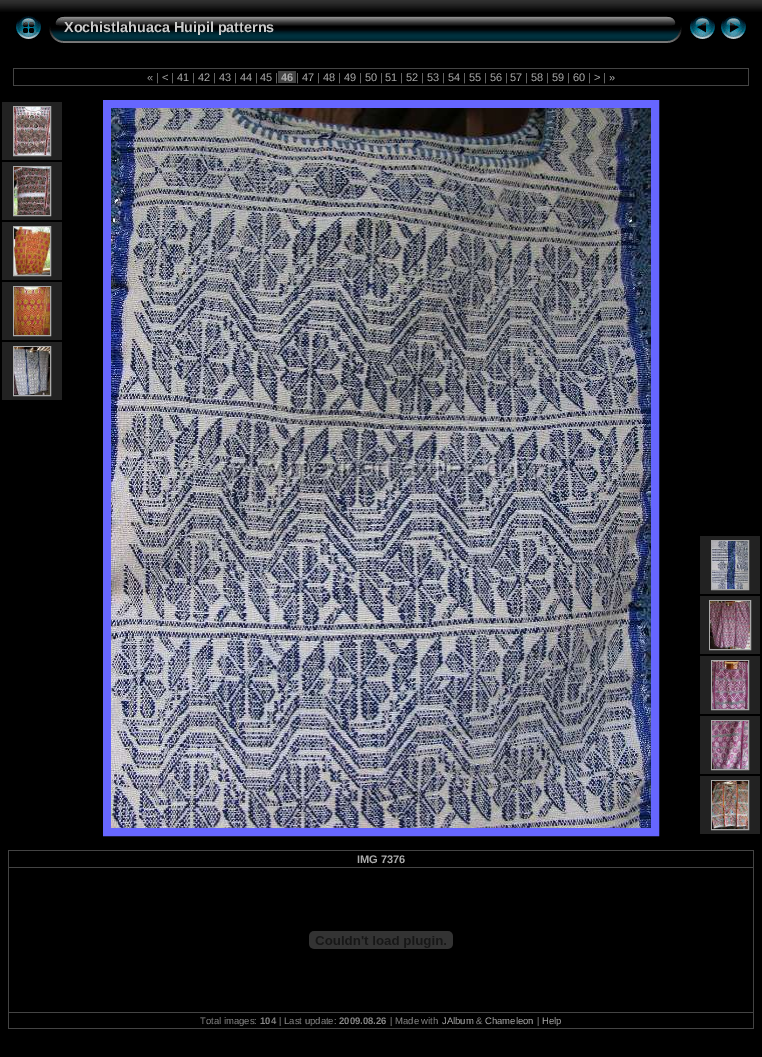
%!PS-Adobe-3.0
%%BoundingBox: 0 0 762 1057
%%LanguageLevel: 3
%%Pages: 1
%%EndComments
%%BeginProlog
/drawimage { 5 dict begin { /h /w /y /x /name } { exch def } forall
  gsave x y translate w h scale
  w h 8 [w 0 0 h 0 0] name (r) file false 3 colorimage grestore end } def
%%EndProlog
%%BeginSetup
<< /PageSize [762 1057] >> setpagedevice
%%EndSetup
%%Page: 1 1
0 1057 translate 1 -1 scale
4 setmiterlimit
0 setgray
0 0 762 1057 rectfill
(images/1.raw) 0 0 762 12 drawimage
(images/2.raw) 16 16 25 23 drawimage
(images/3.raw) 49 16 15 27 drawimage
(images/4.raw) 64 16 603 27 drawimage
(images/5.raw) 667 16 15 27 drawimage
(images/6.raw) 690 16 25 23 drawimage
(images/7.raw) 721 16 25 23 drawimage
0.267 setgray
13 68 736 1 rectfill
748 68 1 18 rectfill
13 85 736 1 rectfill
13 68 1 18 rectfill
278 71 18 12 rectfill
0.133 setgray
2 102 60 58 rectfill
0.667 setgray
13.5 106.5 37 49 rectstroke
(images/8.raw) 14 107 36 48 drawimage
0.133 setgray
2 162 60 58 rectfill
0.667 setgray
13.5 166.5 37 49 rectstroke
(images/9.raw) 14 167 36 48 drawimage
0.133 setgray
2 222 60 58 rectfill
0.667 setgray
13.5 226.5 37 49 rectstroke
(images/10.raw) 14 227 36 48 drawimage
0.133 setgray
2 282 60 58 rectfill
0.667 setgray
13.5 286.5 37 49 rectstroke
(images/11.raw) 14 287 36 48 drawimage
0.133 setgray
2 342 60 58 rectfill
0.667 setgray
13.5 346.5 37 49 rectstroke
(images/12.raw) 14 347 36 48 drawimage
0.4 0.4 1 setrgbcolor
8 setlinewidth
107 104 548 728 rectstroke
(images/13.raw) 111 108 540 720 drawimage
0.133 setgray
700 536 60 58 rectfill
0.667 setgray
1 setlinewidth
711.5 540.5 37 49 rectstroke
(images/14.raw) 712 541 36 48 drawimage
0.133 setgray
700 596 60 58 rectfill
0.667 setgray
709.5 600.5 41 49 rectstroke
(images/15.raw) 710 601 40 48 drawimage
0.133 setgray
700 656 60 58 rectfill
0.667 setgray
711.5 660.5 37 49 rectstroke
(images/16.raw) 712 661 36 48 drawimage
0.133 setgray
700 716 60 58 rectfill
0.667 setgray
711.5 720.5 37 49 rectstroke
(images/17.raw) 712 721 36 48 drawimage
0.133 setgray
700 776 60 58 rectfill
0.667 setgray
711.5 780.5 37 49 rectstroke
(images/18.raw) 712 781 36 48 drawimage
0.267 setgray
8 850 746 1 rectfill
753 850 1 179 rectfill
8 1028 746 1 rectfill
8 850 1 179 rectfill
8 867 746 1 rectfill
(images/19.raw) 309 931 144 18 drawimage
8 1012 746 1 rectfill
/LiberationSans-Bold [14.4 0 0 -14.4 0 0] selectfont
0.8 setgray
64 32 moveto (Xochistlahuaca Huipil patterns) show
/LiberationSans-Regular [11 0 0 -11 0 0] selectfont
0.667 setgray
147 81 moveto («) show
0.533 setgray
156 81 moveto (|) show
0.667 setgray
162 81 moveto (<) show
0.533 setgray
171 81 moveto (|) show
0.667 setgray
177 81 moveto (41) show
0.533 setgray
192 81 moveto (|) show
0.667 setgray
198 81 moveto (42) show
0.533 setgray
213 81 moveto (|) show
0.667 setgray
219 81 moveto (43) show
0.533 setgray
234 81 moveto (|) show
0.667 setgray
240 81 moveto (44) show
0.533 setgray
255 81 moveto (|) show
0.667 setgray
260 81 moveto (45) show
0.533 setgray
275 81 moveto (|) show
/LiberationSans-Bold [11 0 0 -11 0 0] selectfont
0.667 setgray
281 81 moveto (46) show
/LiberationSans-Regular [11 0 0 -11 0 0] selectfont
0.533 setgray
296 81 moveto (|) show
0.667 setgray
302 81 moveto (47) show
0.533 setgray
317 81 moveto (|) show
0.667 setgray
323 81 moveto (48) show
0.533 setgray
338 81 moveto (|) show
0.667 setgray
344 81 moveto (49) show
0.533 setgray
359 81 moveto (|) show
0.667 setgray
365 81 moveto (50) show
0.533 setgray
380 81 moveto (|) show
0.667 setgray
385 81 moveto (51) show
0.533 setgray
400 81 moveto (|) show
0.667 setgray
406 81 moveto (52) show
0.533 setgray
421 81 moveto (|) show
0.667 setgray
427 81 moveto (53) show
0.533 setgray
442 81 moveto (|) show
0.667 setgray
448 81 moveto (54) show
0.533 setgray
463 81 moveto (|) show
0.667 setgray
469 81 moveto (55) show
0.533 setgray
484 81 moveto (|) show
0.667 setgray
490 81 moveto (56) show
0.533 setgray
505 81 moveto (|) show
0.667 setgray
510 81 moveto (57) show
0.533 setgray
525 81 moveto (|) show
0.667 setgray
531 81 moveto (58) show
0.533 setgray
546 81 moveto (|) show
0.667 setgray
552 81 moveto (59) show
0.533 setgray
567 81 moveto (|) show
0.667 setgray
573 81 moveto (60) show
0.533 setgray
588 81 moveto (|) show
0.667 setgray
594 81 moveto (>) show
0.533 setgray
603 81 moveto (|) show
0.667 setgray
609 81 moveto (») show
/LiberationSans-Bold [11 0 0 -11 0 0] selectfont
357 863 moveto (IMG 7376) show
/LiberationSans-Regular [9.5 0 0 -9.5 0 0] selectfont
0.533 setgray
200 1024 moveto (Total images:) show
/LiberationSans-Bold [9.5 0 0 -9.5 0 0] selectfont
260 1024 moveto (104) show
/LiberationSans-Regular [9.5 0 0 -9.5 0 0] selectfont
279 1024 moveto (| Last update:) show
/LiberationSans-Bold [9.5 0 0 -9.5 0 0] selectfont
339 1024 moveto (2009.08.26) show
/LiberationSans-Regular [9.5 0 0 -9.5 0 0] selectfont
390 1024 moveto (| Made with) show
0.667 setgray
442 1024 moveto (JAlbum) show
0.533 setgray
476 1024 moveto (&) show
0.667 setgray
485 1024 moveto (Chameleon) show
0.533 setgray
537 1024 moveto (|) show
0.667 setgray
542 1024 moveto (Help) show
showpage
%%EOF
